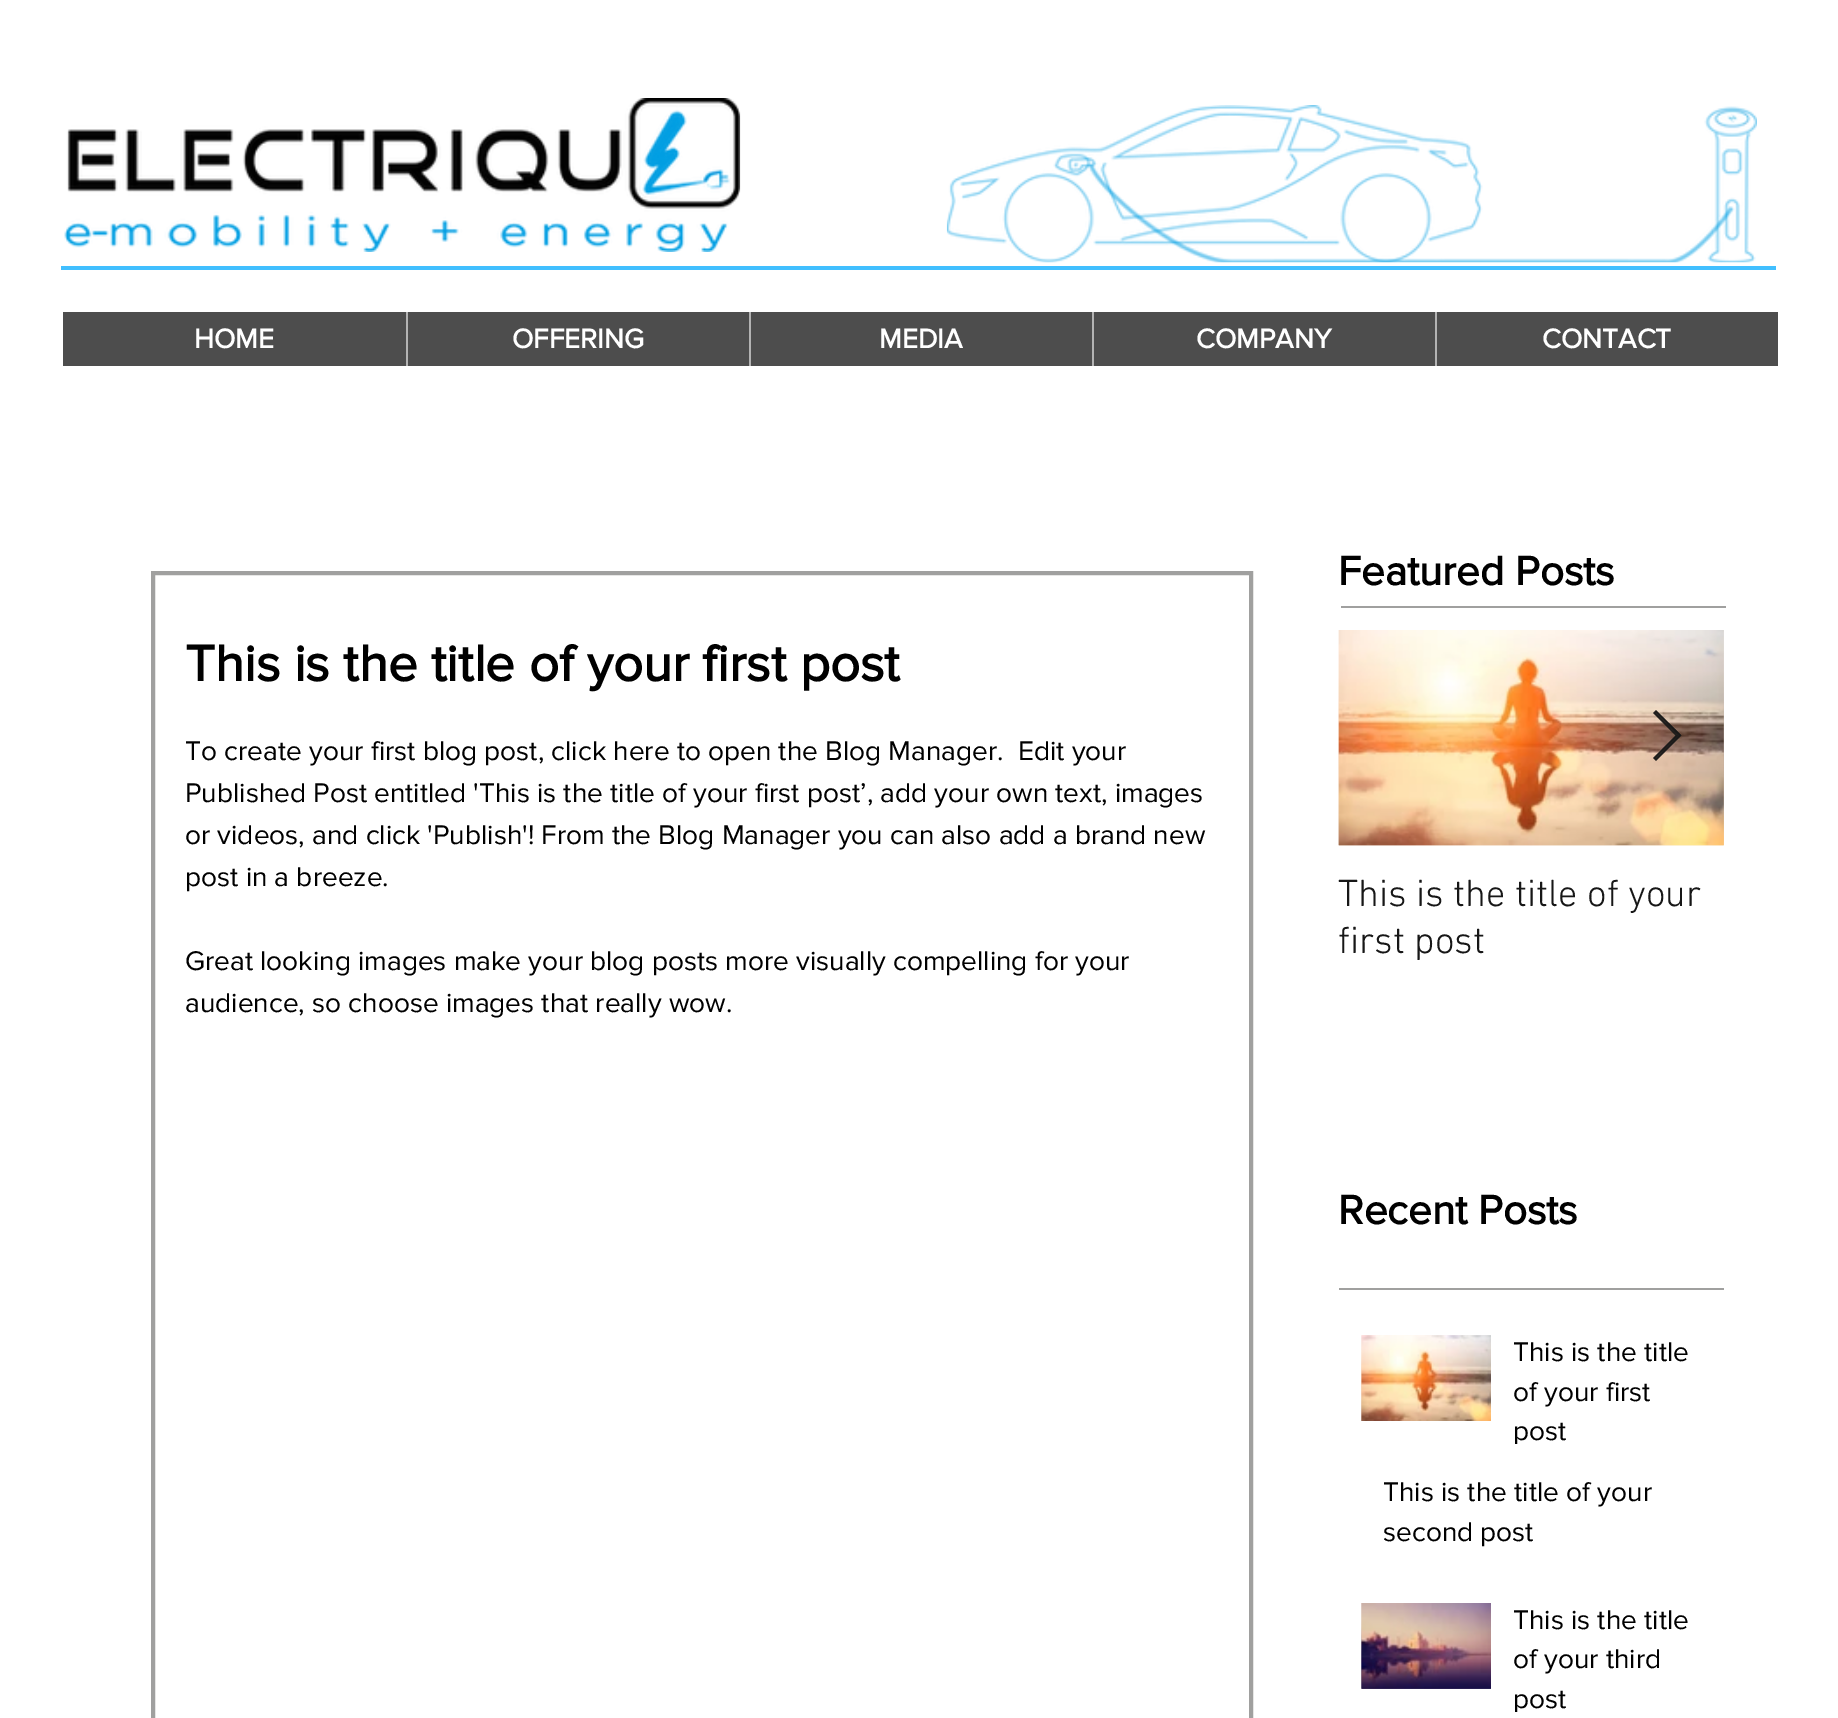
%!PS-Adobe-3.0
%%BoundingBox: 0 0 1838 1718
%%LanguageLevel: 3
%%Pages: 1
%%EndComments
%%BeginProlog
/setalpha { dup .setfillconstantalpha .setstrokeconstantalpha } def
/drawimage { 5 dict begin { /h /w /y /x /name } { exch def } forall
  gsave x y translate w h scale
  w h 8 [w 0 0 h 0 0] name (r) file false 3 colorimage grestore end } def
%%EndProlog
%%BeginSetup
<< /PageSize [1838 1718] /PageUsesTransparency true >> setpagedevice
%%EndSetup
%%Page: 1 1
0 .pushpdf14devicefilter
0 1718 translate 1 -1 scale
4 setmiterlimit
1 setgray
0 0 1838 1718 rectfill
(images/1.raw) 64 98 677 154 drawimage
(images/2.raw) 946 105 811 158 drawimage
0.255 0.749 1 setrgbcolor
61 266 1715 4 rectfill
0.302 setgray
63 312 1715 54 rectfill
0.702 setgray
406 312 2 54 rectfill
749 312 2 54 rectfill
1092 312 2 54 rectfill
1435 312 2 54 rectfill
0.627 0.627 0.624 setrgbcolor
1341 606 385 2 rectfill
4 setlinewidth
153 573 1098 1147 rectstroke
(images/3.raw) 1338 630 386 216 drawimage
(images/4.raw) 1338 630 386 216 drawimage
0.9 setalpha
0.09 setgray
newpath 1654 713 moveto 1656 711 lineto 1681 735 lineto 1656 760 lineto 1654 758 lineto 1677 735 lineto closepath fill
1.4 setlinewidth
newpath 1654 713 moveto 1656 711 lineto 1680.5 735.5 lineto 1656 760 lineto 1654 758 lineto 1676.5 735.5 lineto closepath stroke
1 setalpha
0.627 0.627 0.624 setrgbcolor
1339 1288 385 2 rectfill
(images/5.raw) 1361 1335 130 86 drawimage
(images/6.raw) 1361 1335 130 86 drawimage
(images/7.raw) 1361 1603 130 86 drawimage
(images/8.raw) 1361 1603 130 86 drawimage
/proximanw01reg-Bold [28 0 0 -28 0 0] selectfont
1 setgray
194 348 moveto (HOME) show
512 348 moveto (OFFERING) show
879 348 moveto (MEDIA) show
1196 348 moveto (COMPANY) show
1542 348 moveto (CONTACT) show
/proximanw01reg-Bold [42 0 0 -42 0 0] selectfont
0 setgray
1338 585 moveto (Featured Posts) show
/proximanw01reg-Bold [52.5 0 0 -52.5 0 0] selectfont
185 681 moveto (This is the title of your first post) show
/proximanw01reg-Regular [28 0 0 -28 0 0] selectfont
185 760 moveto (To create your first blog post, click here to open the Blog Manager.  Edit your) show
185 802 moveto (Published Post entitled 'This is the title of your first post’, add your own text, images) show
185 844 moveto (or videos, and click 'Publish'! From the Blog Manager you can also add a brand new) show
185 886 moveto (post in a breeze.) show
185 970 moveto (Great looking images make your blog posts more visually compelling for your) show
185 1012 moveto (audience, so choose images that really wow.) show
/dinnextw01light-Light [38.5 0 0 -38.5 0 0] selectfont
0.09 setgray
1338 906 moveto (This is the title of your) show
1338 953 moveto (first post) show
/proximanw01reg-Bold [42 0 0 -42 0 0] selectfont
0 setgray
1338 1224 moveto (Recent Posts) show
gsave
1514 1334 189 110 rectclip
/proximanw01reg-Regular [28 0 0 -28 0 0] selectfont
1513 1361 moveto (This is the title) show
grestore
/proximanw01reg-Regular [28 0 0 -28 0 0] selectfont
1513 1401 moveto (of your first) show
gsave
1514 1334 189 110 rectclip
1513 1440 moveto (post) show
grestore
1383 1501 moveto (This is the title of your) show
1383 1541 moveto (second post) show
gsave
1514 1601 189 111 rectclip
1513 1629 moveto (This is the title) show
grestore
1513 1668 moveto (of your third) show
gsave
1514 1601 189 111 rectclip
1513 1708 moveto (post) show
grestore
.poppdf14devicefilter showpage
%%EOF
